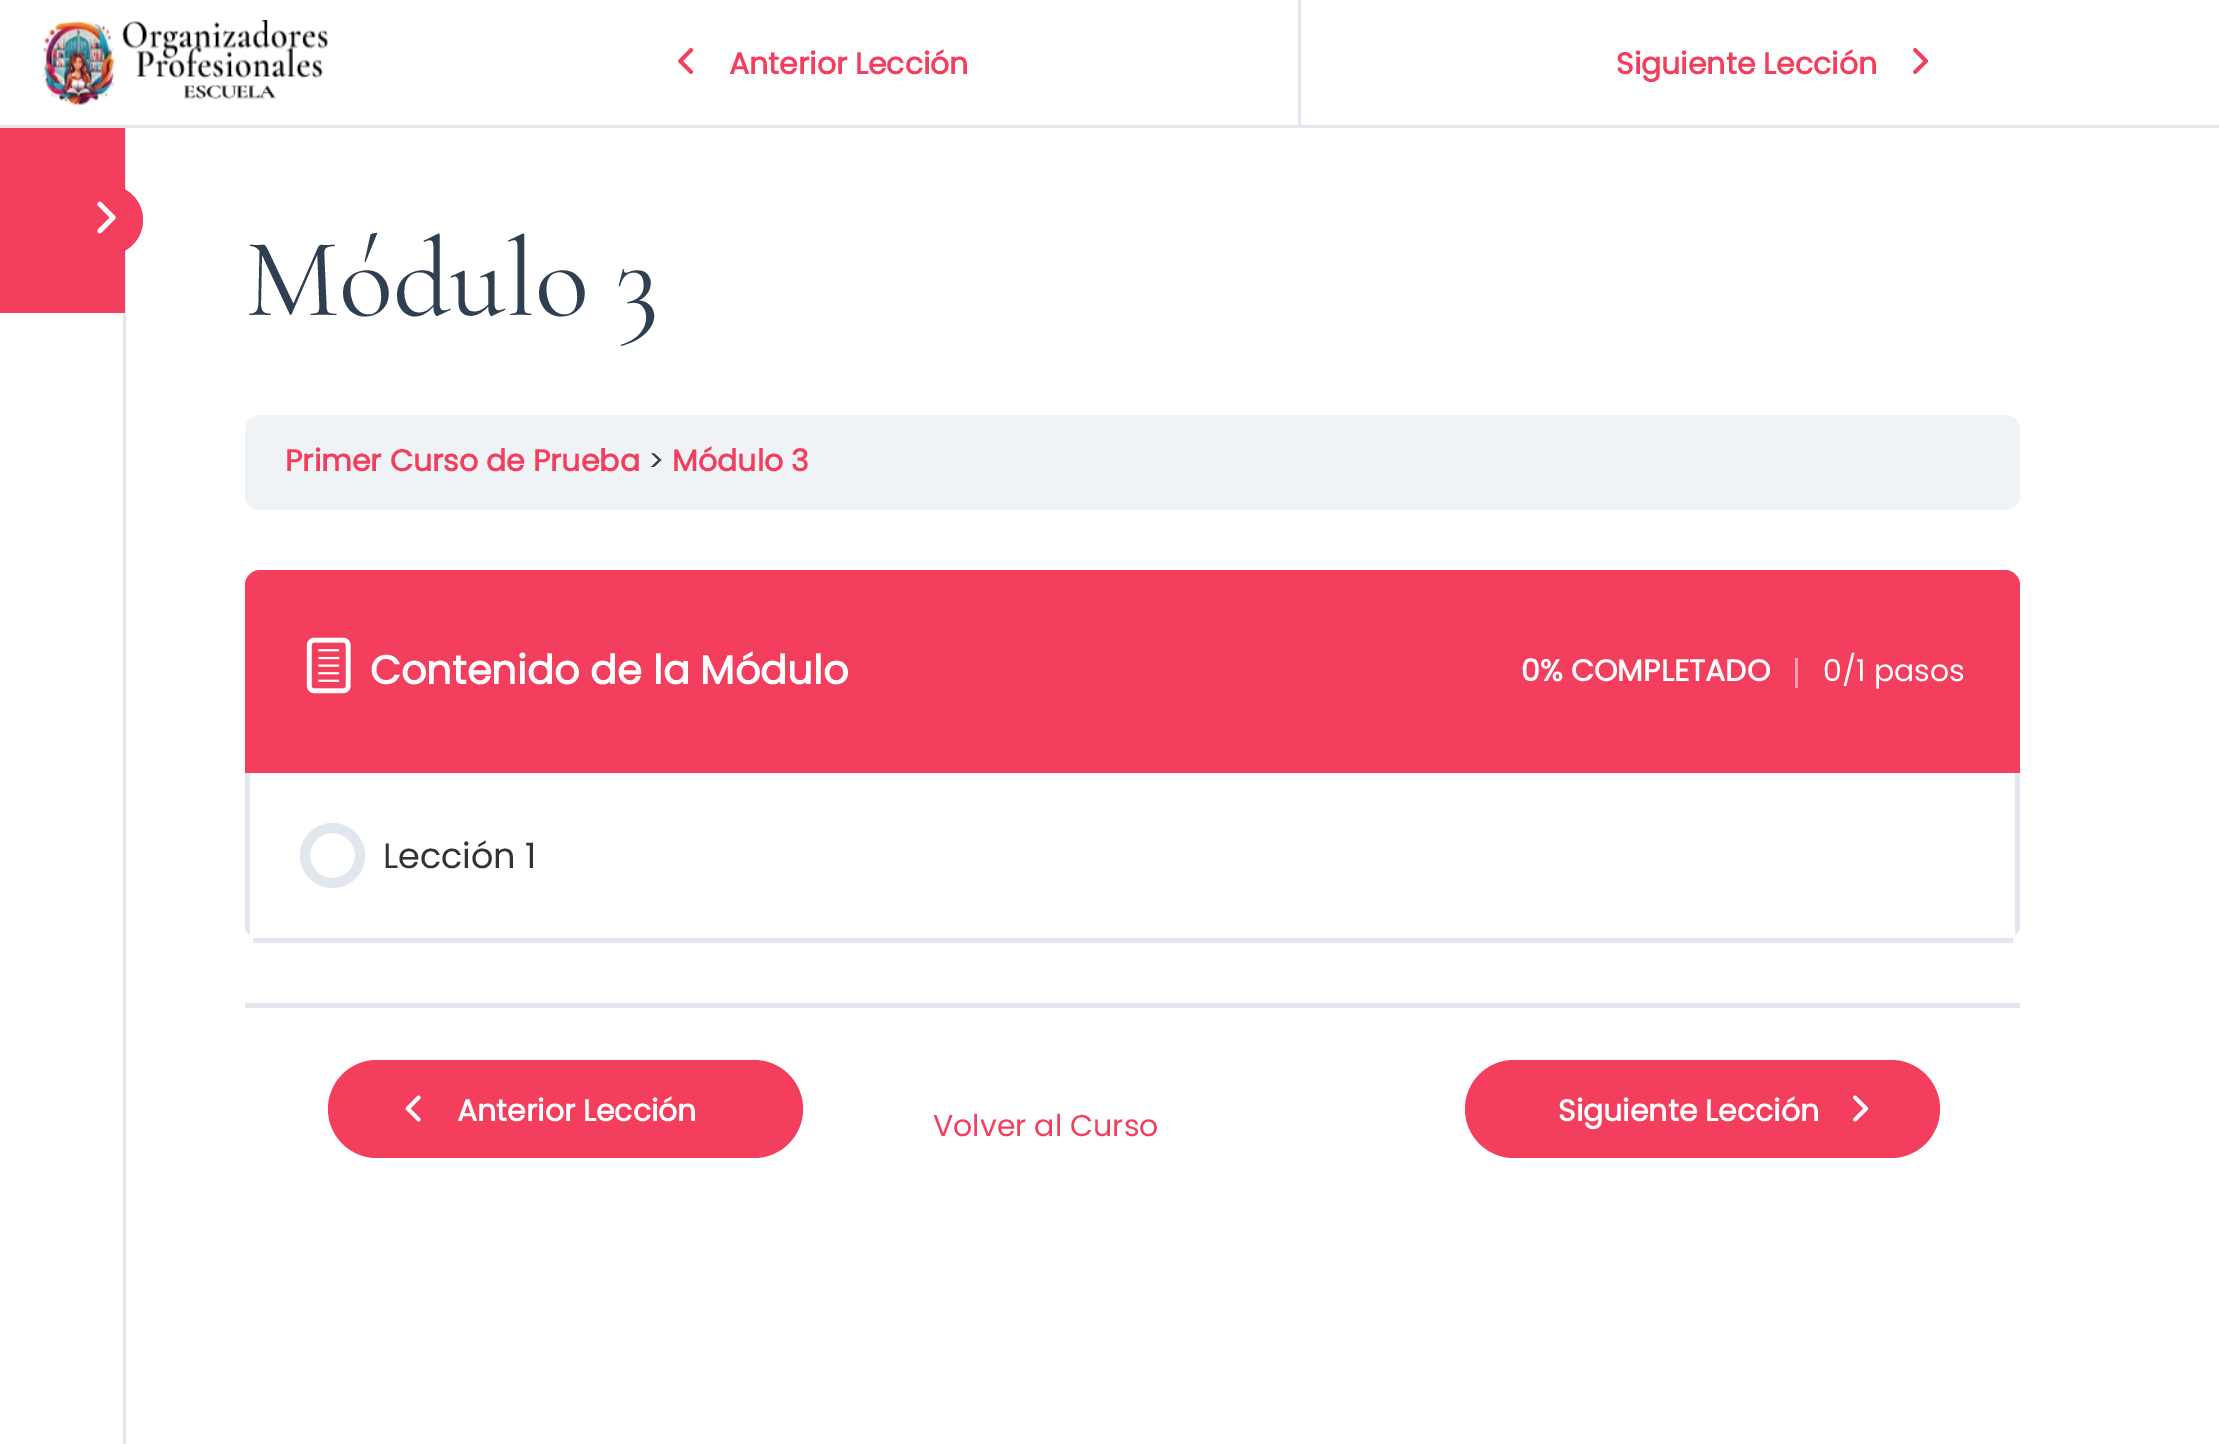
%!PS-Adobe-3.0
%%BoundingBox: 0 0 2219 1444
%%LanguageLevel: 3
%%Pages: 1
%%EndComments
%%BeginProlog
/rrect { 5 dict begin { /r /h /w /y /x } { exch def } forall
  x r add y moveto x w add y 2 copy h add r arct x w add y h add x 1 index r arct
  x y h add x y r arct x y 2 copy exch w add exch r arct closepath end } def
/drawimage { 5 dict begin { /h /w /y /x /name } { exch def } forall
  gsave x y translate w h scale
  w h 8 [w 0 0 h 0 0] name (r) file false 3 colorimage grestore end } def
%%EndProlog
%%BeginSetup
<< /PageSize [2219 1444] >> setpagedevice
%%EndSetup
%%Page: 1 1
0 1444 translate 1 -1 scale
4 setmiterlimit
1 setgray
0 0 2219 1444 rectfill
0.886 0.906 0.929 setrgbcolor
123 128 3 1316 rectfill
0.957 0.243 0.369 setrgbcolor
0 128 125 185 rectfill
70 185 73 70 35 rrect fill
(images/1.raw) 97 201 19 33 drawimage
0.886 0.906 0.929 setrgbcolor
0 125 2219 3 rectfill
(images/2.raw) 42 20 286 85 drawimage
1298 0 3 125 rectfill
(images/3.raw) 678 48 16 26 drawimage
(images/4.raw) 1913 48 16 26 drawimage
0.941 0.953 0.965 setrgbcolor
245 415 1775 95 15 rrect fill
0.886 0.906 0.929 setrgbcolor
253 938 1760 5 rectfill
0.957 0.243 0.369 setrgbcolor
newpath 260 570 moveto 252 570 245 577 245 585 curveto 245 773 lineto 2020 773 lineto 2020 585 lineto 2020 577 2013 570 2005 570 curveto closepath fill
(images/5.raw) 306 637 45 57 drawimage
0.98 0.624 0.686 setrgbcolor
1795 658 3 30 rectfill
0.886 0.906 0.929 setrgbcolor
newpath 2015 773 moveto 2015 935 lineto 2018 933 2020 930 2020 928 curveto 2020 773 lineto closepath fill
newpath 245 773 moveto 245 928 lineto 245 930 247 933 250 935 curveto 250 773 lineto closepath fill
10 setlinewidth
newpath 332.5 855.5 27.5 0 360 arc closepath stroke
245 1003 1775 5 rectfill
0.957 0.243 0.369 setrgbcolor
328 1060 475 98 49 rrect fill
(images/6.raw) 405 1095 16 27 drawimage
1465 1060 475 98 49 rrect fill
(images/7.raw) 1853 1095 16 27 drawimage
/Poppins-Bold [30 0 0 -30 0 0] selectfont
729 74 moveto (Anterior Lección) show
1616 74 moveto (Siguiente Lección) show
/CormorantGaramond-Regular [112.5 0 0 -112.5 0 0] selectfont
0.184 0.247 0.314 setrgbcolor
245 315 moveto (Módulo 3) show
/Poppins-Bold [30 0 0 -30 0 0] selectfont
0.957 0.243 0.369 setrgbcolor
285 471 moveto (Primer Curso de Prueba) show
/Poppins-Regular [30 0 0 -30 0 0] selectfont
0.227 setgray
648 471 moveto (>) show
/Poppins-Bold [30 0 0 -30 0 0] selectfont
0.957 0.243 0.369 setrgbcolor
672 471 moveto (Módulo 3) show
/Poppins-Bold [40 0 0 -40 0 0] selectfont
1 setgray
370 684 moveto (Contenido de la Módulo) show
/Poppins-Bold [30 0 0 -30 0 0] selectfont
1521 681 moveto (0% COMPLETADO) show
/Poppins-Regular [30 0 0 -30 0 0] selectfont
1823 681 moveto (0/1 pasos) show
/Poppins-Regular [35 0 0 -35 0 0] selectfont
0.2 setgray
383 868 moveto (Lección 1) show
/Poppins-Bold [30 0 0 -30 0 0] selectfont
1 setgray
457 1121 moveto (Anterior Lección) show
/Poppins-Regular [30 0 0 -30 0 0] selectfont
0.957 0.243 0.369 setrgbcolor
933 1136 moveto (Volver al Curso) show
/Poppins-Bold [30 0 0 -30 0 0] selectfont
1 setgray
1558 1121 moveto (Siguiente Lección) show
showpage
%%EOF
